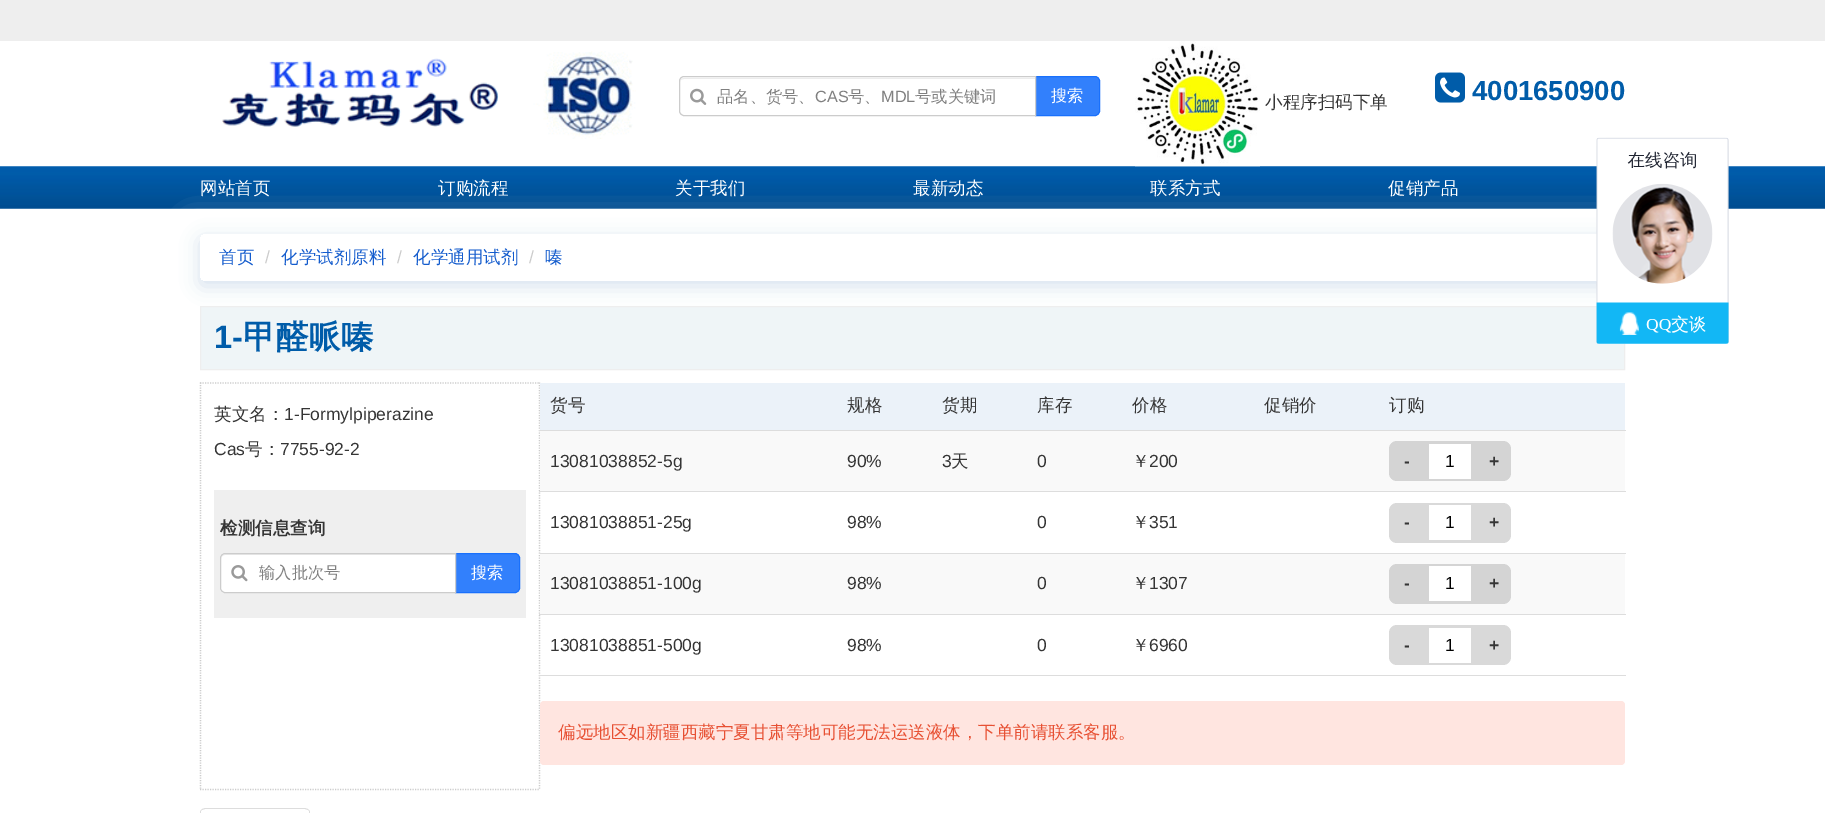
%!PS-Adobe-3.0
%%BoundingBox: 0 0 1825 813
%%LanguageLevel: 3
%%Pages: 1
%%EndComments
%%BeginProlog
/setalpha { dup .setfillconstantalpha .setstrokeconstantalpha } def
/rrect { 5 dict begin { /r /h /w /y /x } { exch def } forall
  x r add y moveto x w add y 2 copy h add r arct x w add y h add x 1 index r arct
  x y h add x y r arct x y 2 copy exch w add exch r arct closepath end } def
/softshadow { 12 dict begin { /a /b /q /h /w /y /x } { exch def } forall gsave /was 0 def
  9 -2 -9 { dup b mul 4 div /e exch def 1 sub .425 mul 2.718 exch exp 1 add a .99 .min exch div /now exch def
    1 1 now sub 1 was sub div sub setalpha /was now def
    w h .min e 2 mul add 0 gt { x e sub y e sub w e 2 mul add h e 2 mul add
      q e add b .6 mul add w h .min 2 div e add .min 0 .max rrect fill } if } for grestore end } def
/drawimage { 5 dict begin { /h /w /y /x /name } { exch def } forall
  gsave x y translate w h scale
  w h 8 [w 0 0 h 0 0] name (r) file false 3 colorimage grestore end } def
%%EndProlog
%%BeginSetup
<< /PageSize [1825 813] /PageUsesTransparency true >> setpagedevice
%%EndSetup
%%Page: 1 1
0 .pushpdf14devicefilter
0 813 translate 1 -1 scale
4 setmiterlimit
1 setgray
0 0 1825 813 rectfill
0.933 setgray
0 0 1825 41 rectfill
(images/1.raw) 222 51 414 88 drawimage
0.196 0.502 0.988 setrgbcolor
newpath 1035.5 76.5 moveto 1095 76.5 lineto 1097.5 76.5 1099.5 78.5 1099.5 81 curveto 1099.5 111 lineto 1099.5 113.5 1097.5 115.5 1095 115.5 curveto 1035.5 115.5 lineto closepath gsave fill grestore
0.098 0.439 0.988 setrgbcolor
stroke
1 setgray
newpath 684 76 moveto 1036 76 lineto 1036 116 lineto 684 116 lineto 681 116 679 114 679 111 curveto 679 81 lineto 679 78 681 76 684 76 curveto closepath fill
0.925 setgray
newpath 684 79 moveto 1035 79 lineto 1035 78 lineto 684 78 lineto 682 78 680 80 680 82 curveto 680 80 682 79 684 79 curveto closepath fill
0.8 setgray
newpath 684 76.5 moveto 1035.5 76.5 lineto 1035.5 115.5 lineto 684 115.5 lineto 681.5 115.5 679.5 113.5 679.5 111 curveto 679.5 81 lineto 679.5 78.5 681.5 76.5 684 76.5 curveto closepath stroke
(images/2.raw) 690 88 17 17 drawimage
(images/5.raw) 0 166 1825 43 drawimage
(images/3.raw) 1135 41 125 126 drawimage
(images/4.raw) 1435 72 30 31 drawimage
gsave
newpath 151 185 moveto 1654 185 lineto 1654 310 lineto 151 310 lineto closepath 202.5 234 moveto 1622.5 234 lineto 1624 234 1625 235 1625 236.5 curveto 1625 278.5 lineto 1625 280 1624 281 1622.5 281 curveto 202.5 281 lineto 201 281 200 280 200 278.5 curveto 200 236.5 lineto 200 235 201 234 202.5 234 curveto closepath eoclip newpath
1 setgray
190 224 1425 47 2.5 12.5 0.8 softshadow
grestore
gsave
newpath 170 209 moveto 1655 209 lineto 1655 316 lineto 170 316 lineto closepath 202.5 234 moveto 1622.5 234 lineto 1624 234 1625 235 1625 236.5 curveto 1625 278.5 lineto 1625 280 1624 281 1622.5 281 curveto 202.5 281 lineto 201 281 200 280 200 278.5 curveto 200 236.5 lineto 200 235 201 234 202.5 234 curveto closepath eoclip newpath
0.216 0.388 0.667 setrgbcolor
200 239 1425 47 2.5 9.5 0.2 softshadow
grestore
0.937 0.961 0.969 setrgbcolor
newpath 200.5 306.5 moveto 1624.5 306.5 lineto 1624.5 369.5 lineto 200.5 369.5 lineto closepath gsave fill grestore
0.933 setgray
stroke
(images/6.raw) 1596 137 133 207 drawimage
0.8 setgray
1.2 setlinewidth
[1.25 1.25] 0 setdash
newpath 200 383 moveto 540 383 lineto stroke
newpath 539.5 382.5 moveto 539.5 790 lineto stroke
newpath 200 789.5 moveto 540 789.5 lineto stroke
newpath 200.5 382.5 moveto 200.5 790 lineto stroke
0.937 setgray
214 490 312 128 rectfill
0.196 0.502 0.988 setrgbcolor
newpath 455.5 553.5 moveto 515 553.5 lineto 517.5 553.5 519.5 555.5 519.5 558 curveto 519.5 588 lineto 519.5 590.5 517.5 592.5 515 592.5 curveto 455.5 592.5 lineto closepath gsave fill grestore
0.098 0.439 0.988 setrgbcolor
1 setlinewidth
[] 0 setdash
stroke
1 setgray
newpath 225 553 moveto 456 553 lineto 456 593 lineto 225 593 lineto 222 593 220 591 220 588 curveto 220 558 lineto 220 555 222 553 225 553 curveto closepath fill
0.925 setgray
newpath 225 555 moveto 455 555 lineto 455 554 lineto 225 554 lineto 222 554 221 556 221 559 curveto 221 557 223 555 225 555 curveto closepath fill
0.8 setgray
newpath 225 553.5 moveto 455.5 553.5 lineto 455.5 592.5 lineto 225 592.5 lineto 222.5 592.5 220.5 590.5 220.5 588 curveto 220.5 558 lineto 220.5 555.5 222.5 553.5 225 553.5 curveto closepath stroke
(images/7.raw) 231 565 17 17 drawimage
0.922 0.949 0.976 setrgbcolor
540 383 1085 47 rectfill
0.867 setgray
539 430 1087 1 rectfill
0.976 setgray
540 431 1085 60 rectfill
0.867 setgray
539 491 1087 1 rectfill
0.831 setgray
1389 441 122 40 8 rrect fill
1 setgray
1429 444 42 35 rectfill
0.867 setgray
539 553 1087 1 rectfill
0.851 setgray
1389 503 122 40 8 rrect fill
1 setgray
1429 505 42 35 rectfill
0.976 setgray
540 554 1085 60 rectfill
0.867 setgray
539 614 1087 1 rectfill
0.831 setgray
1389 564 122 40 8 rrect fill
1 setgray
1429 566 42 35 rectfill
0.867 setgray
539 675 1087 1 rectfill
0.851 setgray
1389 625 122 40 8 rrect fill
1 setgray
1429 628 42 35 rectfill
1 0.898 0.878 setrgbcolor
540 701 1085 64 4 rrect fill
0.867 setgray
newpath 205 808 moveto 202 809 lineto 202 810 lineto 205 809 lineto 305 809 lineto 308 810 lineto 308 809 lineto 305 808 lineto closepath fill
newpath 310 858 moveto 310 811 lineto 308 809 lineto 308 810 lineto 309 811 lineto 309 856 lineto 308 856 lineto closepath fill
newpath 200 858 moveto 202 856 lineto 201 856 lineto 201 811 lineto 202 810 lineto 202 809 lineto 201 810 200 811 200 812 curveto closepath fill
/WenQuanYiZenHei-Medium [16.25 0 0 -16.25 0 0] selectfont
0.502 setgray
717 102 moveto (品名、货号、) show
/LiberationSans-Regular [16.25 0 0 -16.25 0 0] selectfont
815 102 moveto (CAS) show
/WenQuanYiZenHei-Medium [16.25 0 0 -16.25 0 0] selectfont
848 102 moveto (号、) show
/LiberationSans-Regular [16.25 0 0 -16.25 0 0] selectfont
881 102 moveto (MDL) show
/WenQuanYiZenHei-Medium [16.25 0 0 -16.25 0 0] selectfont
915 102 moveto (号或关键词) show
1 setgray
1051 101 moveto (搜索) show
/WenQuanYiZenHei-Medium [17.5 0 0 -17.5 0 0] selectfont
0.208 setgray
1265 108 moveto (小程序扫码下单) show
/LiberationSans-Bold [27.5 0 0 -27.5 0 0] selectfont
0 0.361 0.663 setrgbcolor
1472 100 moveto (4001650900) show
/WenQuanYiZenHei-Medium [17.5 0 0 -17.5 0 0] selectfont
1 setgray
200 194 moveto (网站首页) show
438 194 moveto (订购流程) show
675 194 moveto (关于我们) show
913 194 moveto (最新动态) show
1150 194 moveto (联系方式) show
1388 194 moveto (促销产品) show
0.078 0.361 0.804 setrgbcolor
219 263 moveto (首页) show
/LiberationSans-Regular [17.5 0 0 -17.5 0 0] selectfont
0.8 setgray
265 263 moveto (/) show
/WenQuanYiZenHei-Medium [17.5 0 0 -17.5 0 0] selectfont
0.078 0.361 0.804 setrgbcolor
281 263 moveto (化学试剂原料) show
/LiberationSans-Regular [17.5 0 0 -17.5 0 0] selectfont
0.8 setgray
397 263 moveto (/) show
/WenQuanYiZenHei-Medium [17.5 0 0 -17.5 0 0] selectfont
0.078 0.361 0.804 setrgbcolor
413 263 moveto (化学通用试剂) show
/LiberationSans-Regular [17.5 0 0 -17.5 0 0] selectfont
0.8 setgray
529 263 moveto (/) show
/WenQuanYiZenHei-Medium [17.5 0 0 -17.5 0 0] selectfont
0.078 0.361 0.804 setrgbcolor
545 263 moveto (嗪) show
/LiberationSans-Bold [32.5 0 0 -32.5 0 0] selectfont
0 0.361 0.663 setrgbcolor
214 348 moveto (1-) show
/WenQuanYiZenHei-Bold [32.5 0 0 -32.5 0 0] selectfont
243 348 moveto (甲醛哌嗪) show
/WenQuanYiZenHei-Medium [17.5 0 0 -17.5 0 0] selectfont
0.208 setgray
214 420 moveto (英文名：) show
/LiberationSans-Regular [17.5 0 0 -17.5 0 0] selectfont
284 420 moveto (1-Formylpiperazine) show
214 455 moveto (Cas) show
/WenQuanYiZenHei-Medium [17.5 0 0 -17.5 0 0] selectfont
245 455 moveto (号：) show
/LiberationSans-Regular [17.5 0 0 -17.5 0 0] selectfont
280 455 moveto (7755-92-2) show
/WenQuanYiZenHei-Bold [17.5 0 0 -17.5 0 0] selectfont
220 534 moveto (检测信息查询) show
/WenQuanYiZenHei-Medium [16.25 0 0 -16.25 0 0] selectfont
0.502 setgray
259 578 moveto (输入批次号) show
1 setgray
471 578 moveto (搜索) show
/WenQuanYiZenHei-Medium [17.5 0 0 -17.5 0 0] selectfont
0.208 setgray
550 411 moveto (货号) show
847 411 moveto (规格) show
942 411 moveto (货期) show
1037 411 moveto (库存) show
1132 411 moveto (价格) show
1264 411 moveto (促销价) show
1389 411 moveto (订购) show
/LiberationSans-Regular [17.5 0 0 -17.5 0 0] selectfont
550 467 moveto (13081038852-5g) show
847 467 moveto (90%) show
942 467 moveto (3) show
/WenQuanYiZenHei-Medium [17.5 0 0 -17.5 0 0] selectfont
951 467 moveto (天) show
/LiberationSans-Regular [17.5 0 0 -17.5 0 0] selectfont
1037 467 moveto (0) show
/WenQuanYiZenHei-Medium [17.5 0 0 -17.5 0 0] selectfont
1132 467 moveto (￥) show
/LiberationSans-Regular [17.5 0 0 -17.5 0 0] selectfont
1149 467 moveto (200) show
/LiberationSans-Bold [17.5 0 0 -17.5 0 0] selectfont
1404 467 moveto (-) show
/LiberationSans-Regular [17.5 0 0 -17.5 0 0] selectfont
0 setgray
1445 467 moveto (1) show
/LiberationSans-Bold [17.5 0 0 -17.5 0 0] selectfont
0.208 setgray
1489 467 moveto (+) show
/LiberationSans-Regular [17.5 0 0 -17.5 0 0] selectfont
550 528 moveto (13081038851-25g) show
847 528 moveto (98%) show
1037 528 moveto (0) show
/WenQuanYiZenHei-Medium [17.5 0 0 -17.5 0 0] selectfont
1132 528 moveto (￥) show
/LiberationSans-Regular [17.5 0 0 -17.5 0 0] selectfont
1149 528 moveto (351) show
/LiberationSans-Bold [17.5 0 0 -17.5 0 0] selectfont
1404 528 moveto (-) show
/LiberationSans-Regular [17.5 0 0 -17.5 0 0] selectfont
0 setgray
1445 528 moveto (1) show
/LiberationSans-Bold [17.5 0 0 -17.5 0 0] selectfont
0.208 setgray
1489 528 moveto (+) show
/LiberationSans-Regular [17.5 0 0 -17.5 0 0] selectfont
550 589 moveto (13081038851-100g) show
847 589 moveto (98%) show
1037 589 moveto (0) show
/WenQuanYiZenHei-Medium [17.5 0 0 -17.5 0 0] selectfont
1132 589 moveto (￥) show
/LiberationSans-Regular [17.5 0 0 -17.5 0 0] selectfont
1149 589 moveto (1307) show
/LiberationSans-Bold [17.5 0 0 -17.5 0 0] selectfont
1404 589 moveto (-) show
/LiberationSans-Regular [17.5 0 0 -17.5 0 0] selectfont
0 setgray
1445 589 moveto (1) show
/LiberationSans-Bold [17.5 0 0 -17.5 0 0] selectfont
0.208 setgray
1489 589 moveto (+) show
/LiberationSans-Regular [17.5 0 0 -17.5 0 0] selectfont
550 651 moveto (13081038851-500g) show
847 651 moveto (98%) show
1037 651 moveto (0) show
/WenQuanYiZenHei-Medium [17.5 0 0 -17.5 0 0] selectfont
1132 651 moveto (￥) show
/LiberationSans-Regular [17.5 0 0 -17.5 0 0] selectfont
1149 651 moveto (6960) show
/LiberationSans-Bold [17.5 0 0 -17.5 0 0] selectfont
1404 651 moveto (-) show
/LiberationSans-Regular [17.5 0 0 -17.5 0 0] selectfont
0 setgray
1445 651 moveto (1) show
/LiberationSans-Bold [17.5 0 0 -17.5 0 0] selectfont
0.208 setgray
1489 651 moveto (+) show
/WenQuanYiZenHei-Medium [17.5 0 0 -17.5 0 0] selectfont
0.906 0.314 0.2 setrgbcolor
558 738 moveto (偏远地区如新疆西藏宁夏甘肃等地可能无法运送液体，下单前请联系客服。) show
.poppdf14devicefilter showpage
%%EOF
